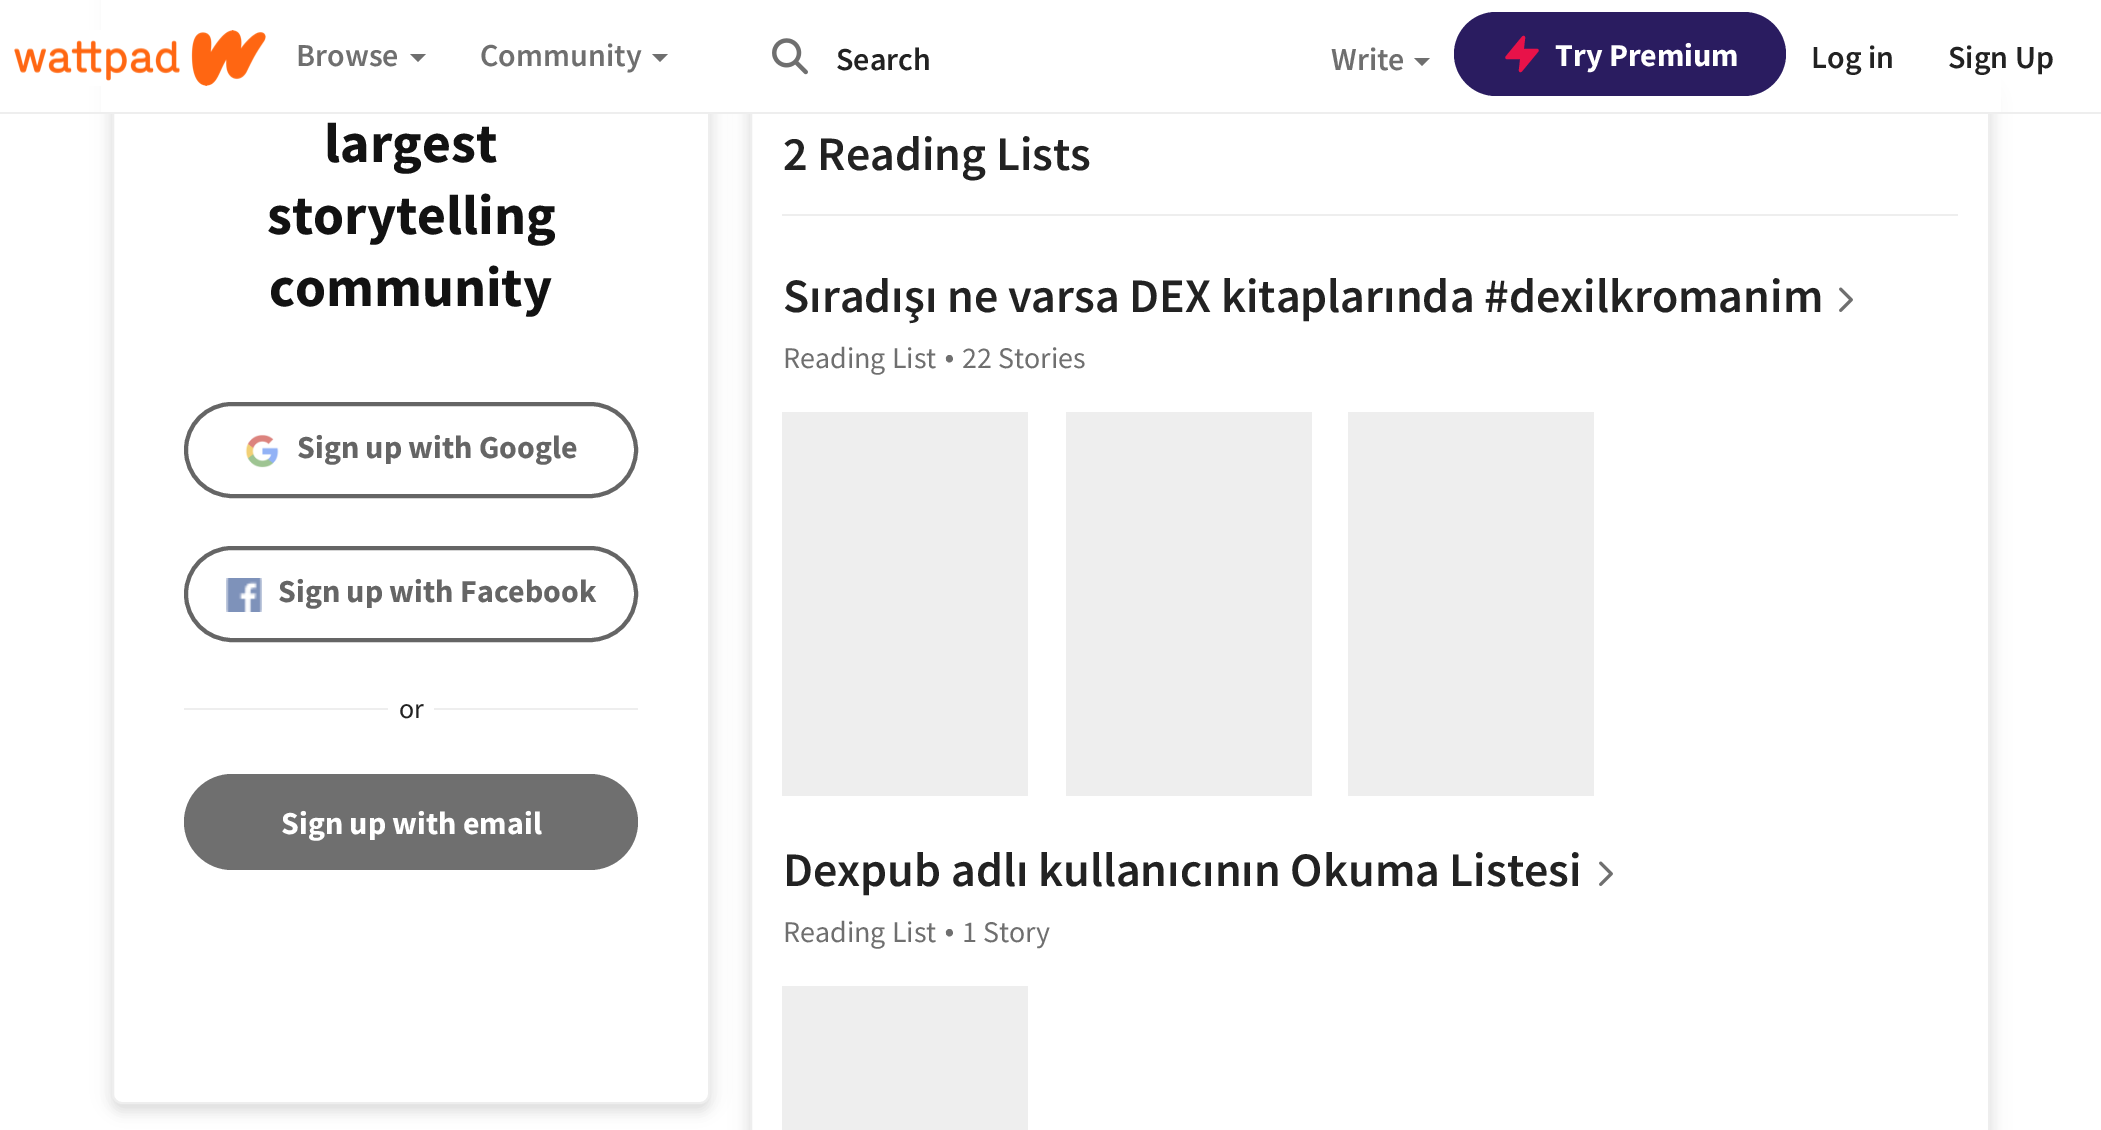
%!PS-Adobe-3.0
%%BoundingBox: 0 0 2101 1130
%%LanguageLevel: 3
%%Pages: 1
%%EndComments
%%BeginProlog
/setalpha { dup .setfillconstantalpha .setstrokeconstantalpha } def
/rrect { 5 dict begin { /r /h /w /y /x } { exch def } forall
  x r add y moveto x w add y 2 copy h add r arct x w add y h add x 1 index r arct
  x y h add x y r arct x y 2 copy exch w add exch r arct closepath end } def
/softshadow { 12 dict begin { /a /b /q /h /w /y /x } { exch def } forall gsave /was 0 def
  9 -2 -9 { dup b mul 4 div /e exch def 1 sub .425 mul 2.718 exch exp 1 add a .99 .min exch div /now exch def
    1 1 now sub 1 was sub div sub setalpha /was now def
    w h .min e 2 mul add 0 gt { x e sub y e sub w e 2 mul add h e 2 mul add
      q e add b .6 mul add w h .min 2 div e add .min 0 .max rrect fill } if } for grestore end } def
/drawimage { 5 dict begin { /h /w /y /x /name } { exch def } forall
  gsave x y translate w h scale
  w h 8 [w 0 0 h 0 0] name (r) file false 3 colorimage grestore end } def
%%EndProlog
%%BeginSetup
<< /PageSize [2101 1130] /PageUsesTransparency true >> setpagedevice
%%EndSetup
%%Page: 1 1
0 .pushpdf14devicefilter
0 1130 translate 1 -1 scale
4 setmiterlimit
1 setgray
0 0 2101 1130 rectfill
0.133 setgray
112 -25 598 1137 10 5 0.1 softshadow
112 -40 598 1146 10 10 0.08 softshadow
1 setgray
113 -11 596 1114 9 rrect gsave fill grestore
0.933 setgray
2 setlinewidth
stroke
0.133 setgray
750 96 1240 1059 10 5 0.1 softshadow
750 90 1240 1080 10 10 0.08 softshadow
1 setgray
752 114 1236 1016 rectfill
0.933 setgray
751 89 1238 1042 rectstroke
1 setgray
101 0 1900 112 rectfill
0.933 setgray
0 112 2101 2 rectfill
(images/1.raw) 14 30 252 56 drawimage
0.435 setgray
newpath 410 54 moveto 426 54 lineto 418 62 lineto closepath fill
newpath 652 54 moveto 668 54 lineto 660 62 lineto closepath fill
(images/2.raw) 772 38 36 37 drawimage
newpath 1414 58 moveto 1430 58 lineto 1422 66 lineto closepath fill
0.165 0.11 0.376 setrgbcolor
1454 12 332 84 42 rrect fill
0.91 0.071 0.286 setrgbcolor
newpath 1523.5 37.5 moveto 1507 57.5 lineto 1522 57.5 lineto 1520.5 70.5 lineto 1537 50.5 lineto 1522 50.5 lineto closepath gsave fill grestore
3.3 setlinewidth
1 setlinecap
1 setlinejoin
stroke
0.396 setgray
4 setlinewidth
0 setlinecap
0 setlinejoin
186 404 450 92 46 rrect stroke
(images/3.raw) 245 434 34 34 drawimage
186 548 450 92 46 rrect stroke
(images/4.raw) 226 578 36 34 drawimage
0.933 setgray
184 708 204 2 rectfill
434 708 204 2 rectfill
0.435 setgray
184 774 454 96 48 rrect fill
0.933 setgray
782 214 1176 2 rectfill
(images/5.raw) 1839 287 14 25 drawimage
782 412 246 384 rectfill
1066 412 246 384 rectfill
1348 412 246 384 rectfill
(images/5.raw) 1599 861 14 25 drawimage
782 986 246 144 rectfill
/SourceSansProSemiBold-SemiBold [32 0 0 -32 0 0] selectfont
0.435 setgray
296 66 moveto (Browse) show
480 66 moveto (Community) show
0.133 setgray
836 70 moveto (Search) show
0.435 setgray
1331 70 moveto (Write) show
/SourceSansPro-Bold [32 0 0 -32 0 0] selectfont
1 setgray
1555 66 moveto (Try Premium) show
/SourceSansProSemiBold-SemiBold [32 0 0 -32 0 0] selectfont
0.133 setgray
1811 68 moveto (Log in) show
1948 68 moveto (Sign Up) show
/SourceSansPro-Bold [56 0 0 -56 0 0] selectfont
0.071 setgray
324 162 moveto (largest) show
267 234 moveto (storytelling) show
269 306 moveto (community) show
/SourceSansPro-Bold [32 0 0 -32 0 0] selectfont
0.396 setgray
297 458 moveto (Sign up with Google) show
278 602 moveto (Sign up with Facebook) show
/SourceSansPro-Regular [28 0 0 -28 0 0] selectfont
0.133 setgray
399 718 moveto (or) show
/SourceSansPro-Bold [32 0 0 -32 0 0] selectfont
1 setgray
281 834 moveto (Sign up with email) show
/SourceSansProSemiBold-SemiBold [48 0 0 -48 0 0] selectfont
0.133 setgray
783 170 moveto (2 Reading Lists) show
783 312 moveto (Sıradışı ne varsa DEX kitaplarında #dexilkromanim) show
/SourceSansPro-Regular [30 0 0 -30 0 0] selectfont
0.435 setgray
783 368 moveto (Reading List) show
/SourceSansPro-Regular [60 0 0 -60 0 0] selectfont
942 378 moveto (·) show
/SourceSansPro-Regular [30 0 0 -30 0 0] selectfont
962 368 moveto (22 Stories) show
/SourceSansProSemiBold-SemiBold [48 0 0 -48 0 0] selectfont
0.133 setgray
783 886 moveto (Dexpub adlı kullanıcının Okuma Listesi) show
/SourceSansPro-Regular [30 0 0 -30 0 0] selectfont
0.435 setgray
783 942 moveto (Reading List) show
/SourceSansPro-Regular [60 0 0 -60 0 0] selectfont
942 952 moveto (·) show
/SourceSansPro-Regular [30 0 0 -30 0 0] selectfont
962 942 moveto (1 Story) show
.poppdf14devicefilter showpage
%%EOF
